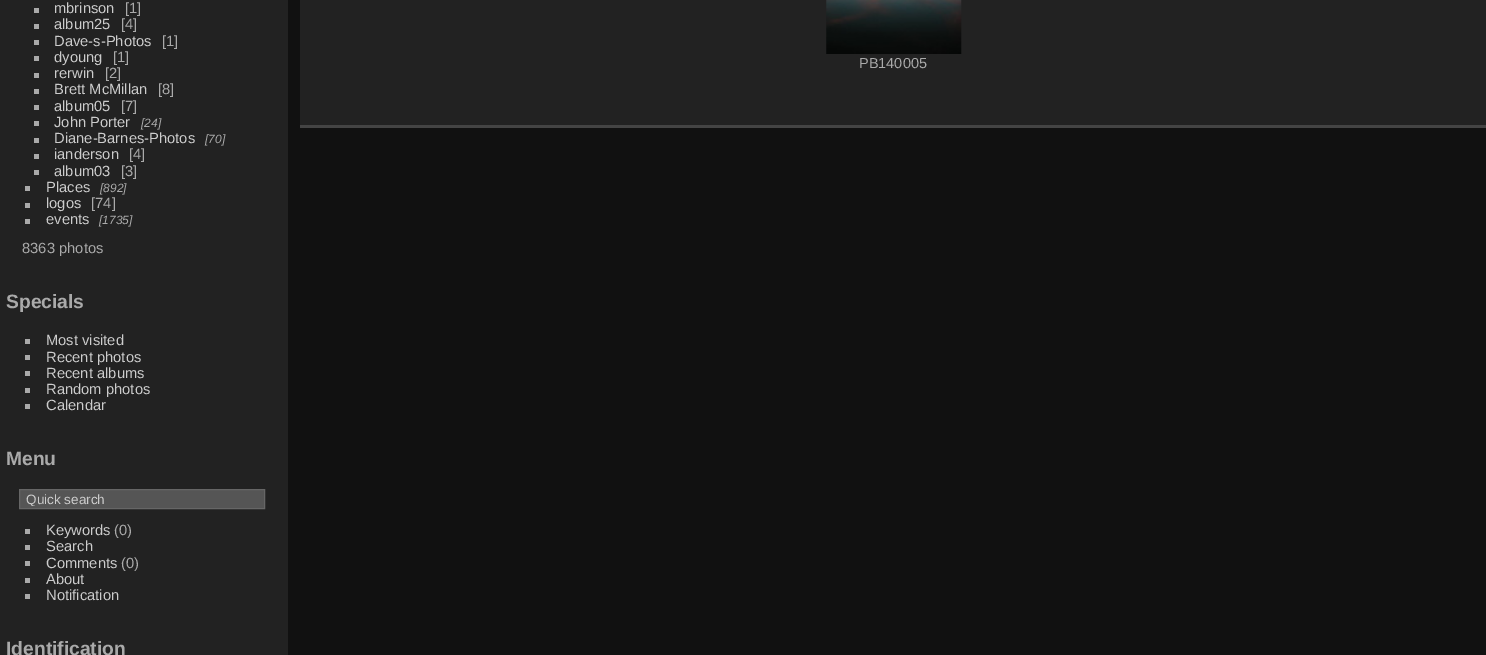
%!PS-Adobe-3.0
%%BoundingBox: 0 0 1486 655
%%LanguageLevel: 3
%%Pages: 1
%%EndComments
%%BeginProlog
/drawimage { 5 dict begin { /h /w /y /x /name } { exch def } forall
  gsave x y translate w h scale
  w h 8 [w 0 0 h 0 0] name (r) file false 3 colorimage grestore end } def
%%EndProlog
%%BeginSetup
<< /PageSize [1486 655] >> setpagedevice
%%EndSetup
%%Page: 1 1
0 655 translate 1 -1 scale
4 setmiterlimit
0.067 setgray
0 0 1486 655 rectfill
0.133 setgray
0 0 288 655 rectfill
0.667 setgray
34 8 5 5 rectfill
34 24 5 5 rectfill
34 40 5 5 rectfill
34 56 5 5 rectfill
34 73 5 5 rectfill
34 89 5 5 rectfill
34 105 5 5 rectfill
34 121 5 5 rectfill
34 138 5 5 rectfill
34 154 5 5 rectfill
34 170 5 5 rectfill
25 186 5 5 rectfill
25 203 5 5 rectfill
25 219 5 5 rectfill
25 339 5 5 rectfill
25 355 5 5 rectfill
25 371 5 5 rectfill
25 388 5 5 rectfill
25 404 5 5 rectfill
0.333 setgray
newpath 19.5 489.5 moveto 264.5 489.5 lineto 264.5 508.5 lineto 19.5 508.5 lineto closepath gsave fill grestore
0.4 setgray
stroke
0.667 setgray
25 529 5 5 rectfill
25 545 5 5 rectfill
25 561 5 5 rectfill
25 578 5 5 rectfill
25 594 5 5 rectfill
0.133 setgray
300 0 1186 125 rectfill
0.267 setgray
300 125 1186 3 rectfill
(images/1.raw) 826 0 136 54 drawimage
/LiberationSans-Regular [14.75 0 0 -14.75 0 0] selectfont
0.8 setgray
54 13 moveto (mbrinson) show
0.667 setgray
125 13 moveto ([1]) show
0.8 setgray
54 29 moveto (album25) show
0.667 setgray
121 29 moveto ([4]) show
0.8 setgray
54 46 moveto (Dave-s-Photos) show
0.667 setgray
162 46 moveto ([1]) show
0.8 setgray
54 62 moveto (dyoung) show
0.667 setgray
113 62 moveto ([1]) show
0.8 setgray
54 78 moveto (rerwin) show
0.667 setgray
105 78 moveto ([2]) show
0.8 setgray
54 94 moveto (Brett McMillan) show
0.667 setgray
158 94 moveto ([8]) show
0.8 setgray
54 111 moveto (album05) show
0.667 setgray
121 111 moveto ([7]) show
0.8 setgray
54 127 moveto (John Porter) show
/LiberationSans-Italic [12 0 0 -12 0 0] selectfont
0.667 setgray
141 127 moveto ([24]) show
/LiberationSans-Regular [14.75 0 0 -14.75 0 0] selectfont
0.8 setgray
54 143 moveto (Diane-Barnes-Photos) show
/LiberationSans-Italic [12 0 0 -12 0 0] selectfont
0.667 setgray
205 143 moveto ([70]) show
/LiberationSans-Regular [14.75 0 0 -14.75 0 0] selectfont
0.8 setgray
54 159 moveto (ianderson) show
0.667 setgray
129 159 moveto ([4]) show
0.8 setgray
54 176 moveto (album03) show
0.667 setgray
121 176 moveto ([3]) show
0.8 setgray
46 192 moveto (Places) show
/LiberationSans-Italic [12 0 0 -12 0 0] selectfont
0.667 setgray
100 192 moveto ([892]) show
/LiberationSans-Regular [14.75 0 0 -14.75 0 0] selectfont
0.8 setgray
46 208 moveto (logos) show
0.667 setgray
91 208 moveto ([74]) show
0.8 setgray
46 224 moveto (events) show
/LiberationSans-Italic [12 0 0 -12 0 0] selectfont
0.667 setgray
99 224 moveto ([1735]) show
/LiberationSans-Regular [14.75 0 0 -14.75 0 0] selectfont
22 253 moveto (8363 photos) show
/LiberationSans-Bold [19.25 0 0 -19.25 0 0] selectfont
6 308 moveto (Specials) show
/LiberationSans-Regular [14.75 0 0 -14.75 0 0] selectfont
0.8 setgray
46 345 moveto (Most visited) show
46 362 moveto (Recent photos) show
46 378 moveto (Recent albums) show
46 394 moveto (Random photos) show
46 410 moveto (Calendar) show
/LiberationSans-Bold [19.25 0 0 -19.25 0 0] selectfont
0.667 setgray
6 465 moveto (Menu) show
gsave
23 491 238 15 rectclip
/LiberationSans-Regular [13.5 0 0 -13.5 0 0] selectfont
0.8 setgray
26 504 moveto (Quick search) show
grestore
/LiberationSans-Regular [14.75 0 0 -14.75 0 0] selectfont
0.8 setgray
46 535 moveto (Keywords) show
0.667 setgray
114 535 moveto (\(0\)) show
0.8 setgray
46 551 moveto (Search) show
46 568 moveto (Comments) show
0.667 setgray
121 568 moveto (\(0\)) show
0.8 setgray
46 584 moveto (About) show
46 600 moveto (Notification) show
/LiberationSans-Bold [19.25 0 0 -19.25 0 0] selectfont
0.667 setgray
6 655 moveto (Identification) show
/LiberationSans-Regular [14.5 0 0 -14.5 0 0] selectfont
859 68 moveto (PB140005) show
showpage
%%EOF
